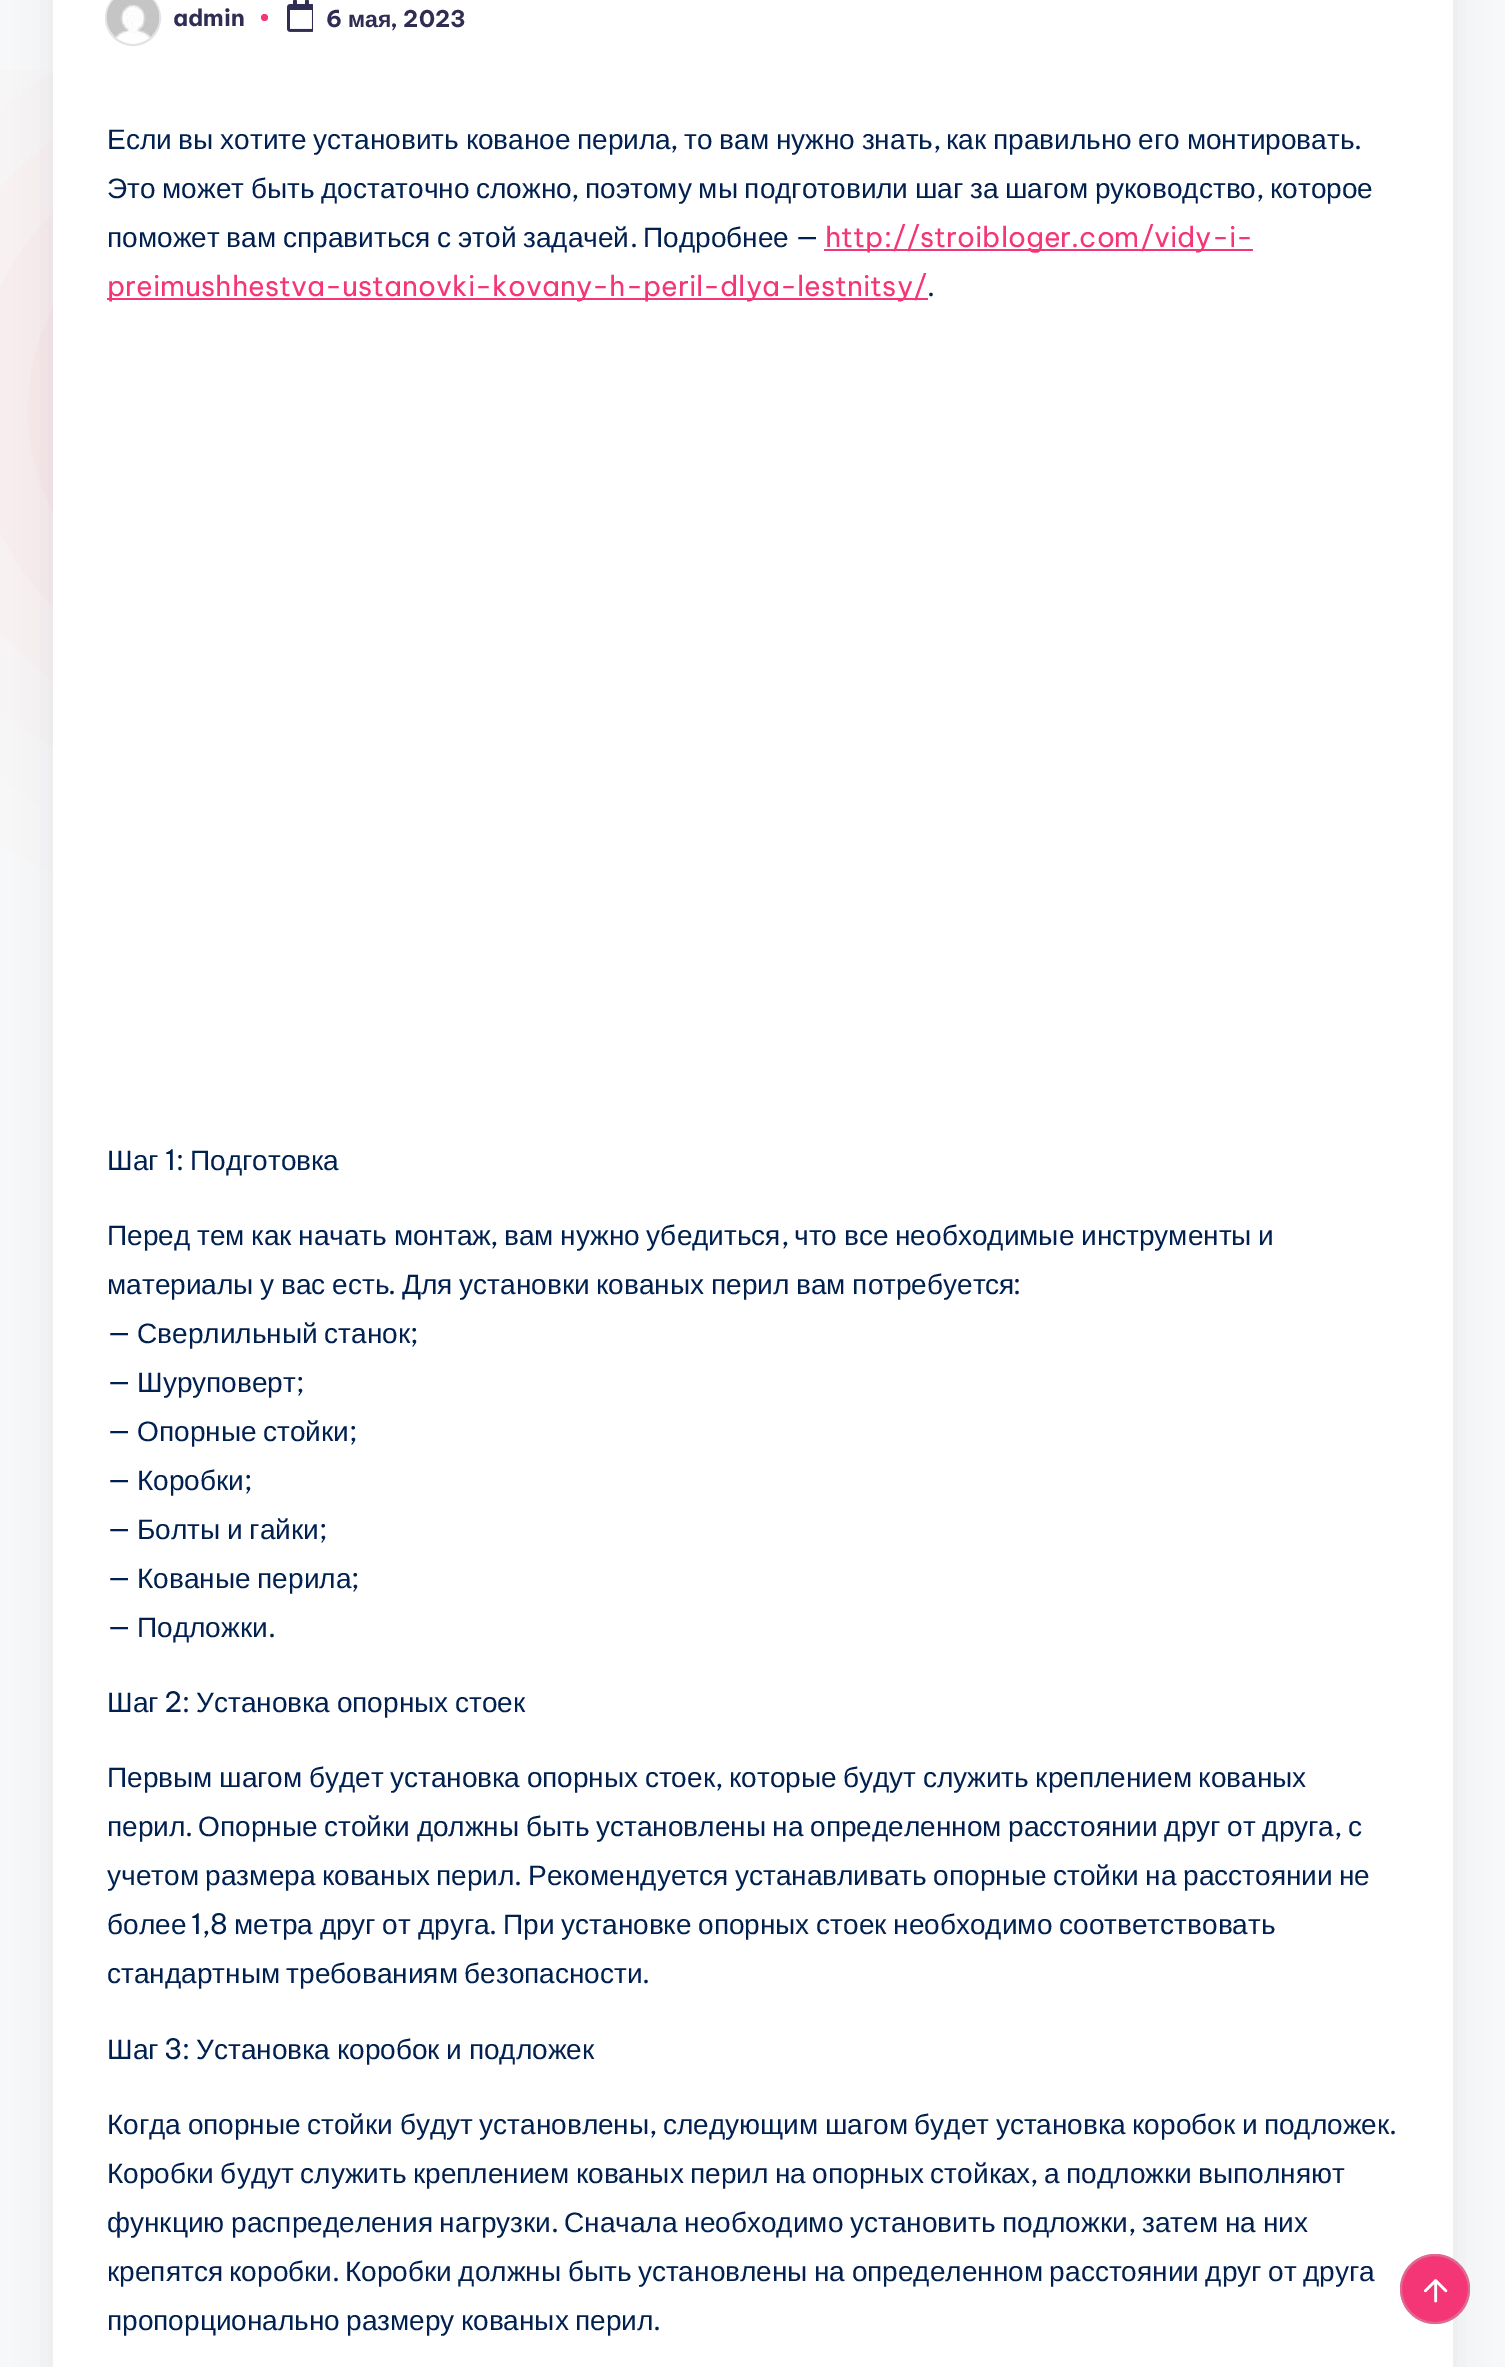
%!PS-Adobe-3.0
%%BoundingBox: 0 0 1505 2367
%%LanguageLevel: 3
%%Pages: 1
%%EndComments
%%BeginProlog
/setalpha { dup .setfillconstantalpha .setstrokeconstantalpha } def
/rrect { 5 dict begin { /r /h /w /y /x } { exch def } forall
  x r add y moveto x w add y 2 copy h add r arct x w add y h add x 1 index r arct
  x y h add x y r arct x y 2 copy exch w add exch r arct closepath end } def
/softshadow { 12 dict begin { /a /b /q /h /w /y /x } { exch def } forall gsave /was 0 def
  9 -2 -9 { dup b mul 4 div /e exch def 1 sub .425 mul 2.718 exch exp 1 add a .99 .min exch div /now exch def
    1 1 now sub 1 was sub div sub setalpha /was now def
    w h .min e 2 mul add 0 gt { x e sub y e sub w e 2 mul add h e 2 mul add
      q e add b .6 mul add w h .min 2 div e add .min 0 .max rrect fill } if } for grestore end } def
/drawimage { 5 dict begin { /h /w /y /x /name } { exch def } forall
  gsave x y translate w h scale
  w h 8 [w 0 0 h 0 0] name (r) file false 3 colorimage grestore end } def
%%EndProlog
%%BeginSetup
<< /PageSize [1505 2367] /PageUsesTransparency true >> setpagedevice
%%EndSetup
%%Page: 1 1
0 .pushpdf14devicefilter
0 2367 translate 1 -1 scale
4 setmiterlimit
0.969 0.973 0.976 setrgbcolor
0 0 1505 2367 rectfill
gsave
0 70 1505 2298 rectclip
0.969 0.89 0.898 setrgbcolor
0 158 504 504 252 112 1 softshadow
grestore
0.271 0.263 0.376 setrgbcolor
53 -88 1400 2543 35 17.5 0.1 softshadow
1 setgray
53 0 1400 2367 rectfill
(images/1.raw) 106 0 53 38 drawimage
0.4 setalpha
0.725 setgray
2 setlinewidth
newpath 133 18 27 0 360 arc closepath stroke
1 setalpha
0.957 0.212 0.463 setrgbcolor
newpath 264.5 17.5 3.5 0 360 arc closepath fill
(images/2.raw) 287 0 26 32 drawimage
824 249 429 2 rectfill
107 298 821 2 rectfill
newpath 1435 2289 35 0 360 arc closepath fill
0.4 setalpha
0.725 setgray
newpath 1435 2289 34 0 360 arc closepath stroke
1 setalpha
(images/3.raw) 1424 2279 24 24 drawimage
/BeVietnamPro-Bold [23 0 0 -23 0 0] selectfont
0.188 0.176 0.333 setrgbcolor
173 26 moveto (admin) show
326 27 moveto (6) show
/LiberationSans-Bold [23 0 0 -23 0 0] selectfont
348 27 moveto (мая) show
/BeVietnamPro-Bold [23 0 0 -23 0 0] selectfont
390 27 moveto (, 2023) show
/LiberationSans-Regular [28 0 0 -28 0 0] selectfont
0 0.125 0.314 setrgbcolor
107 149 moveto -1 0 32 (Если вы хотите установить кованое перила) widthshow
/BeVietnamPro-Regular [28 0 0 -28 0 0] selectfont
670 149 moveto (,) show
/LiberationSans-Regular [28 0 0 -28 0 0] selectfont
684 149 moveto -1 0 32 (то вам нужно знать) widthshow
/BeVietnamPro-Regular [28 0 0 -28 0 0] selectfont
933 149 moveto (,) show
/LiberationSans-Regular [28 0 0 -28 0 0] selectfont
946 149 moveto -1 0 32 (как правильно его монтировать) widthshow
/BeVietnamPro-Regular [28 0 0 -28 0 0] selectfont
1354 149 moveto (.) show
/LiberationSans-Regular [28 0 0 -28 0 0] selectfont
107 198 moveto -1.1 0 32 (Это может быть достаточно сложно) widthshow
/BeVietnamPro-Regular [28 0 0 -28 0 0] selectfont
571 198 moveto (,) show
/LiberationSans-Regular [28 0 0 -28 0 0] selectfont
585 198 moveto -1.1 0 32 (поэтому мы подготовили шаг за шагом руководство) widthshow
/BeVietnamPro-Regular [28 0 0 -28 0 0] selectfont
1256 198 moveto (,) show
/LiberationSans-Regular [28 0 0 -28 0 0] selectfont
1270 198 moveto (которое) show
107 247 moveto -1 0 32 (поможет вам справиться с этой задачей) widthshow
643 247 moveto (Подробнее) show
/BeVietnamPro-Regular [28 0 0 -28 0 0] selectfont
795 247 moveto (—) show
0.957 0.212 0.463 setrgbcolor
825 247 moveto (http://stroibloger.com/vidy-i-) show
0 0.125 0.314 setrgbcolor
630 247 moveto (.) show
0.957 0.212 0.463 setrgbcolor
107 296 moveto (preimushhestva-ustanovki-kovany-h-peril-dlya-lestnitsy/) show
0 0.125 0.314 setrgbcolor
927 296 moveto (.) show
/LiberationSans-Regular [28 0 0 -28 0 0] selectfont
107 1170 moveto (Шаг) show
/BeVietnamPro-Regular [28 0 0 -28 0 0] selectfont
165 1170 moveto (1:) show
/LiberationSans-Regular [28 0 0 -28 0 0] selectfont
190 1170 moveto (Подготовка) show
107 1245 moveto -1 0 32 (Перед тем как начать монтаж) widthshow
/BeVietnamPro-Regular [28 0 0 -28 0 0] selectfont
490 1245 moveto (,) show
/LiberationSans-Regular [28 0 0 -28 0 0] selectfont
504 1245 moveto -1 0 32 (вам нужно убедиться) widthshow
/BeVietnamPro-Regular [28 0 0 -28 0 0] selectfont
781 1245 moveto (,) show
/LiberationSans-Regular [28 0 0 -28 0 0] selectfont
794 1245 moveto -1 0 32 (что все необходимые инструменты и) widthshow
107 1294 moveto -1 0 32 (материалы у вас есть) widthshow
/BeVietnamPro-Regular [28 0 0 -28 0 0] selectfont
388 1294 moveto (.) show
/LiberationSans-Regular [28 0 0 -28 0 0] selectfont
402 1294 moveto -1 0 32 (Для установки кованых перил вам потребуется) widthshow
/BeVietnamPro-Regular [28 0 0 -28 0 0] selectfont
1013 1294 moveto (:) show
107 1343 moveto (—) show
/LiberationSans-Regular [28 0 0 -28 0 0] selectfont
137 1343 moveto -1 0 32 (Сверлильный станок) widthshow
/BeVietnamPro-Regular [28 0 0 -28 0 0] selectfont
410 1343 moveto (;) show
107 1392 moveto (—) show
/LiberationSans-Regular [28 0 0 -28 0 0] selectfont
137 1392 moveto (Шуруповерт) show
/BeVietnamPro-Regular [28 0 0 -28 0 0] selectfont
296 1392 moveto (;) show
107 1441 moveto (—) show
/LiberationSans-Regular [28 0 0 -28 0 0] selectfont
137 1441 moveto -1 0 32 (Опорные стойки) widthshow
/BeVietnamPro-Regular [28 0 0 -28 0 0] selectfont
349 1441 moveto (;) show
107 1490 moveto (—) show
/LiberationSans-Regular [28 0 0 -28 0 0] selectfont
137 1490 moveto (Коробки) show
/BeVietnamPro-Regular [28 0 0 -28 0 0] selectfont
244 1490 moveto (;) show
107 1539 moveto (—) show
/LiberationSans-Regular [28 0 0 -28 0 0] selectfont
137 1539 moveto -1 0 32 (Болты и гайки) widthshow
/BeVietnamPro-Regular [28 0 0 -28 0 0] selectfont
319 1539 moveto (;) show
107 1588 moveto (—) show
/LiberationSans-Regular [28 0 0 -28 0 0] selectfont
137 1588 moveto -1 0 32 (Кованые перила) widthshow
/BeVietnamPro-Regular [28 0 0 -28 0 0] selectfont
351 1588 moveto (;) show
107 1637 moveto (—) show
/LiberationSans-Regular [28 0 0 -28 0 0] selectfont
137 1637 moveto (Подложки) show
/BeVietnamPro-Regular [28 0 0 -28 0 0] selectfont
268 1637 moveto (.) show
/LiberationSans-Regular [28 0 0 -28 0 0] selectfont
107 1712 moveto (Шаг) show
/BeVietnamPro-Regular [28 0 0 -28 0 0] selectfont
164 1712 moveto (2:) show
/LiberationSans-Regular [28 0 0 -28 0 0] selectfont
196 1712 moveto -1 0 32 (Установка опорных стоек) widthshow
107 1787 moveto -1.25 0 32 (Первым шагом будет установка опорных стоек) widthshow
/BeVietnamPro-Regular [28 0 0 -28 0 0] selectfont
715 1787 moveto (,) show
/LiberationSans-Regular [28 0 0 -28 0 0] selectfont
729 1787 moveto -1.25 0 32 (которые будут служить креплением кованых) widthshow
107 1836 moveto (перил) show
/BeVietnamPro-Regular [28 0 0 -28 0 0] selectfont
185 1836 moveto (.) show
/LiberationSans-Regular [28 0 0 -28 0 0] selectfont
198 1836 moveto -1.1 0 32 (Опорные стойки должны быть установлены на определенном расстоянии друг от друга) widthshow
/BeVietnamPro-Regular [28 0 0 -28 0 0] selectfont
1334 1836 moveto (,) show
/LiberationSans-Regular [28 0 0 -28 0 0] selectfont
1348 1836 moveto (с) show
107 1885 moveto -1.25 0 32 (учетом размера кованых перил) widthshow
/BeVietnamPro-Regular [28 0 0 -28 0 0] selectfont
514 1885 moveto (.) show
/LiberationSans-Regular [28 0 0 -28 0 0] selectfont
528 1885 moveto -1.25 0 32 (Рекомендуется устанавливать опорные стойки на расстоянии не) widthshow
107 1934 moveto (более) show
/BeVietnamPro-Regular [28 0 0 -28 0 0] selectfont
191 1934 moveto (1,8) show
/LiberationSans-Regular [28 0 0 -28 0 0] selectfont
234 1934 moveto -1 0 32 (метра друг от друга) widthshow
/BeVietnamPro-Regular [28 0 0 -28 0 0] selectfont
489 1934 moveto (.) show
/LiberationSans-Regular [28 0 0 -28 0 0] selectfont
503 1934 moveto -1 0 32 (При установке опорных стоек необходимо соответствовать) widthshow
107 1983 moveto -1.5 0 32 (стандартным требованиям безопасности) widthshow
/BeVietnamPro-Regular [28 0 0 -28 0 0] selectfont
642 1983 moveto (.) show
/LiberationSans-Regular [28 0 0 -28 0 0] selectfont
107 2059 moveto (Шаг) show
/BeVietnamPro-Regular [28 0 0 -28 0 0] selectfont
164 2059 moveto (3:) show
/LiberationSans-Regular [28 0 0 -28 0 0] selectfont
196 2059 moveto -1 0 32 (Установка коробок и подложек) widthshow
107 2134 moveto -1.25 0 32 (Когда опорные стойки будут установлены) widthshow
/BeVietnamPro-Regular [28 0 0 -28 0 0] selectfont
649 2134 moveto (,) show
/LiberationSans-Regular [28 0 0 -28 0 0] selectfont
663 2134 moveto -1.25 0 32 (следующим шагом будет установка коробок и подложек) widthshow
/BeVietnamPro-Regular [28 0 0 -28 0 0] selectfont
1389 2134 moveto (.) show
/LiberationSans-Regular [28 0 0 -28 0 0] selectfont
107 2183 moveto -1.25 0 32 (Коробки будут служить креплением кованых перил на опорных стойках) widthshow
/BeVietnamPro-Regular [28 0 0 -28 0 0] selectfont
1030 2183 moveto (,) show
/LiberationSans-Regular [28 0 0 -28 0 0] selectfont
1044 2183 moveto -1.25 0 32 (а подложки выполняют) widthshow
107 2232 moveto -1 0 32 (функцию распределения нагрузки) widthshow
/BeVietnamPro-Regular [28 0 0 -28 0 0] selectfont
551 2232 moveto (.) show
/LiberationSans-Regular [28 0 0 -28 0 0] selectfont
564 2232 moveto -1 0 32 (Сначала необходимо установить подложки) widthshow
/BeVietnamPro-Regular [28 0 0 -28 0 0] selectfont
1128 2232 moveto (,) show
/LiberationSans-Regular [28 0 0 -28 0 0] selectfont
1142 2232 moveto -1 0 32 (затем на них) widthshow
107 2281 moveto -1.25 0 32 (крепятся коробки) widthshow
/BeVietnamPro-Regular [28 0 0 -28 0 0] selectfont
332 2281 moveto (.) show
/LiberationSans-Regular [28 0 0 -28 0 0] selectfont
345 2281 moveto -1.25 0 32 (Коробки должны быть установлены на определенном расстоянии друг от друга) widthshow
107 2330 moveto -1.5 0 32 (пропорционально размеру кованых перил) widthshow
/BeVietnamPro-Regular [28 0 0 -28 0 0] selectfont
653 2330 moveto (.) show
.poppdf14devicefilter showpage
%%EOF
